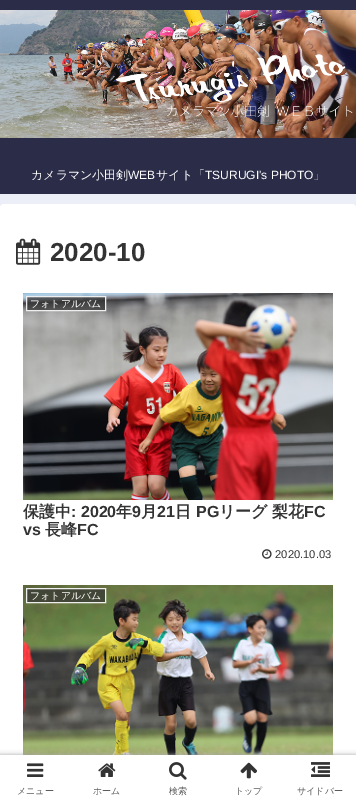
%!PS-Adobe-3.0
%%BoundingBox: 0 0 356 805
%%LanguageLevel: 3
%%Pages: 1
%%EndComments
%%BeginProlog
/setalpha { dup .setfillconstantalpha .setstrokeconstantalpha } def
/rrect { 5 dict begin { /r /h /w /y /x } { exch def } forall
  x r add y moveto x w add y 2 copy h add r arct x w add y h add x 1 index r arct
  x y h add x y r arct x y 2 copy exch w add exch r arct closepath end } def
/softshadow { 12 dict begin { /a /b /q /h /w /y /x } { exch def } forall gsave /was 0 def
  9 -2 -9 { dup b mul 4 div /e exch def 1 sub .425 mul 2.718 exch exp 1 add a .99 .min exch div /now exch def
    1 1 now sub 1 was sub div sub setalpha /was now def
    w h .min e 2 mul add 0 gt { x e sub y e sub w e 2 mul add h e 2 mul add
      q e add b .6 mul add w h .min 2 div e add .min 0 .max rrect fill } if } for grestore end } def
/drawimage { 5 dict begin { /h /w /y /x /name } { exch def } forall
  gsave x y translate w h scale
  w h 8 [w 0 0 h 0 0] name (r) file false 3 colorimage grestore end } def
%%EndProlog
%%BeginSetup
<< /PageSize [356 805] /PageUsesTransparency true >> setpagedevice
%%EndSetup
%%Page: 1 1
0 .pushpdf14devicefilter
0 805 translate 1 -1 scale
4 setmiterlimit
0.925 0.933 0.973 setrgbcolor
0 0 356 805 rectfill
0.169 0.173 0.282 setrgbcolor
0 0 356 194 rectfill
(images/1.raw) 0 10 356 128 drawimage
1 setgray
0 204 356 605 4 rrect fill
(images/2.raw) 16 238 25 27 drawimage
(images/3.raw) 23 293 310 207 drawimage
0.7 setalpha
0.2 setgray
newpath 26.5 296.5 moveto 105.5 296.5 lineto 105.5 310.5 lineto 26.5 310.5 lineto closepath fill
1 setalpha
0.933 setgray
newpath 26.5 296.5 moveto 105.5 296.5 lineto 105.5 310.5 lineto 26.5 310.5 lineto closepath stroke
(images/4.raw) 262 549 10 10 drawimage
(images/5.raw) 23 585 310 170 drawimage
0.7 setalpha
0.2 setgray
newpath 26.5 588.5 moveto 105.5 588.5 lineto 105.5 602.5 lineto 26.5 602.5 lineto closepath fill
1 setalpha
0.933 setgray
newpath 26.5 588.5 moveto 105.5 588.5 lineto 105.5 602.5 lineto 26.5 602.5 lineto closepath stroke
0.663 setgray
0 755 356 50 0 2.5 1 softshadow
1 setgray
0 755 356 50 rectfill
(images/6.raw) 27 763 17 14 drawimage
(images/7.raw) 98 763 18 14 drawimage
(images/8.raw) 169 762 18 18 drawimage
(images/9.raw) 240 762 17 17 drawimage
(images/10.raw) 311 762 19 15 drawimage
/WenQuanYiZenHei-Medium [12 0 0 -12 0 0] selectfont
31 179 moveto (カメラマン小田剣) show
/LiberationSans-Regular [12 0 0 -12 0 0] selectfont
128 179 moveto (WEB) show
/WenQuanYiZenHei-Medium [12 0 0 -12 0 0] selectfont
156 179 moveto (サイト「) show
/LiberationSans-Regular [12 0 0 -12 0 0] selectfont
205 179 moveto (TSURUGI's PHOTO) show
/WenQuanYiZenHei-Medium [12 0 0 -12 0 0] selectfont
313 179 moveto (」) show
/LiberationSans-Bold [26 0 0 -26 0 0] selectfont
0.2 setgray
50 261 moveto (2020-10) show
/WenQuanYiZenHei-Medium [10 0 0 -10 0 0] selectfont
1 setgray
30 307 moveto (フォトアルバム) show
/WenQuanYiZenHei-Bold [16 0 0 -16 0 0] selectfont
0.2 setgray
23 517 moveto (保護中) show
/LiberationSans-Bold [16 0 0 -16 0 0] selectfont
71 517 moveto (: 2020) show
/WenQuanYiZenHei-Bold [16 0 0 -16 0 0] selectfont
116 517 moveto (年) show
/LiberationSans-Bold [16 0 0 -16 0 0] selectfont
132 517 moveto (9) show
/WenQuanYiZenHei-Bold [16 0 0 -16 0 0] selectfont
141 517 moveto (月) show
/LiberationSans-Bold [16 0 0 -16 0 0] selectfont
157 517 moveto (21) show
/WenQuanYiZenHei-Bold [16 0 0 -16 0 0] selectfont
175 517 moveto (日) show
/LiberationSans-Bold [16 0 0 -16 0 0] selectfont
196 517 moveto (PG) show
/WenQuanYiZenHei-Bold [16 0 0 -16 0 0] selectfont
219 517 moveto (リーグ) show
272 517 moveto (梨花) show
/LiberationSans-Bold [16 0 0 -16 0 0] selectfont
304 517 moveto (FC) show
23 535 moveto (vs) show
/WenQuanYiZenHei-Bold [16 0 0 -16 0 0] selectfont
45 535 moveto (長峰) show
/LiberationSans-Bold [16 0 0 -16 0 0] selectfont
77 535 moveto (FC) show
/LiberationSans-Regular [11.25 0 0 -11.25 0 0] selectfont
275 558 moveto (2020.10.03) show
/WenQuanYiZenHei-Medium [10 0 0 -10 0 0] selectfont
1 setgray
30 599 moveto (フォトアルバム) show
/WenQuanYiZenHei-Medium [9 0 0 -9 0 0] selectfont
0.361 setgray
17 794 moveto (メニュー) show
93 794 moveto (ホーム) show
169 794 moveto (検索) show
235 794 moveto (トップ) show
297 794 moveto (サイドバー) show
.poppdf14devicefilter showpage
%%EOF
